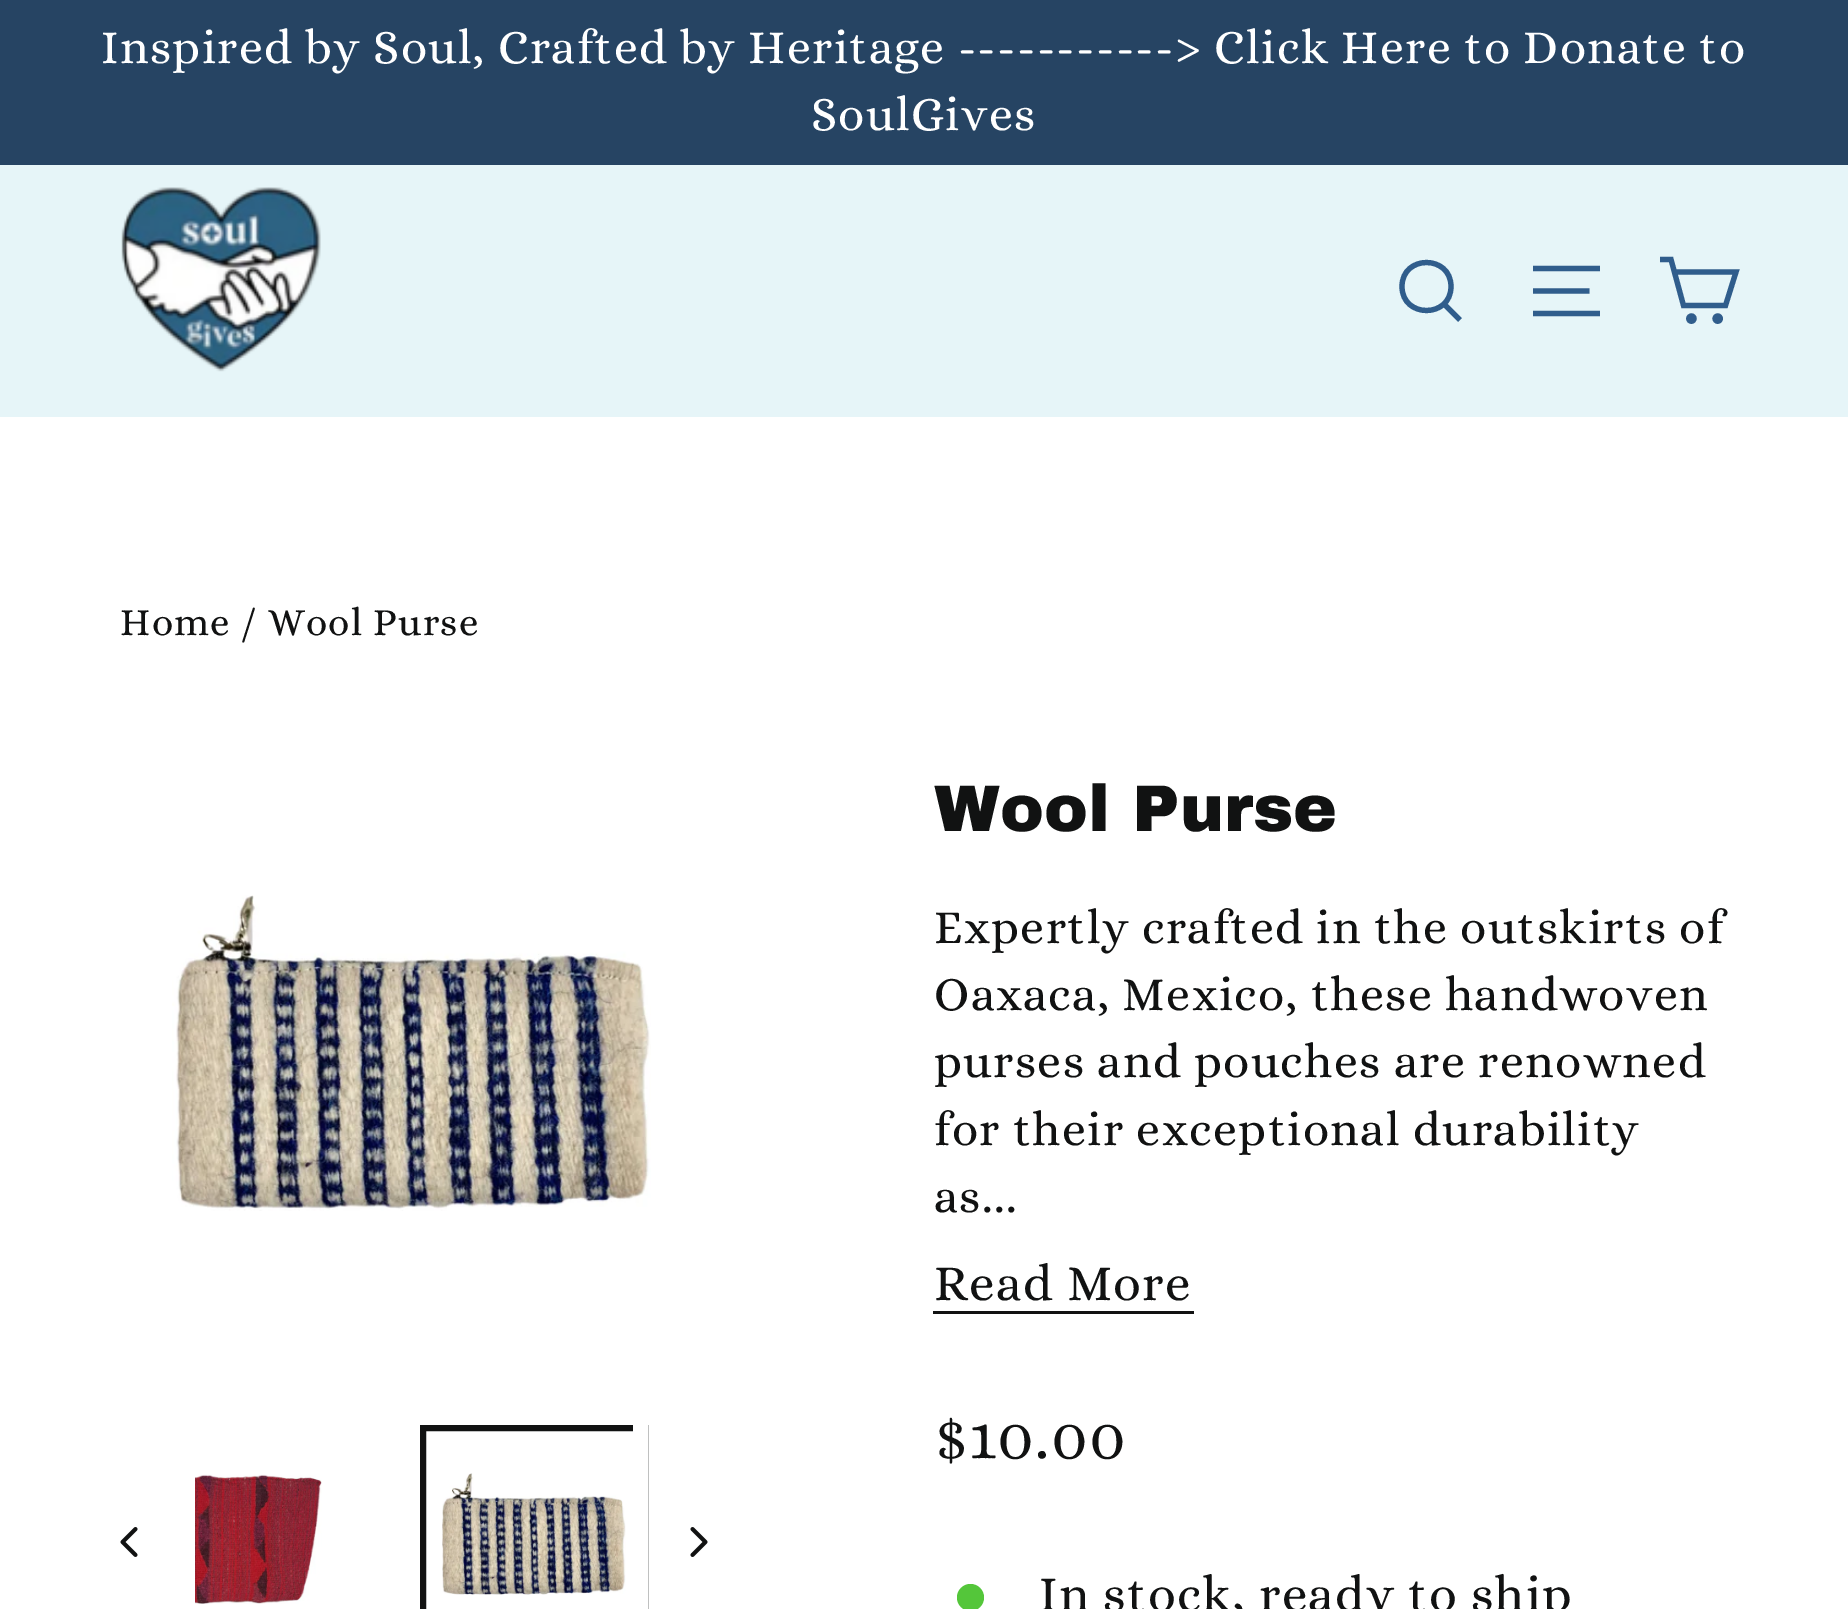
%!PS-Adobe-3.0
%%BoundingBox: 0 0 1848 1609
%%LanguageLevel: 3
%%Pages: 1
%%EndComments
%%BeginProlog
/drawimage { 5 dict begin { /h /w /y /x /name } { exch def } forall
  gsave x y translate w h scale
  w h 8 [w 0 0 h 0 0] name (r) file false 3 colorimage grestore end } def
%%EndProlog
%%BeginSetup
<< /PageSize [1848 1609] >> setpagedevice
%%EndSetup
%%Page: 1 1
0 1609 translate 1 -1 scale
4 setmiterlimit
1 setgray
0 0 1848 1609 rectfill
0.149 0.267 0.388 setrgbcolor
0 0 1848 165 rectfill
0.902 0.961 0.973 setrgbcolor
0 165 1848 252 rectfill
(images/1.raw) 121 187 200 185 drawimage
0.188 0.365 0.549 setrgbcolor
5.2 setlinewidth
newpath 1451 286.5 moveto 1451 318.5 1402 318.5 1402 286.5 curveto 1402 254.5 1451 254.5 1451 286.5 curveto closepath 1460 320 moveto 1444 304 lineto stroke
newpath 1533 268.5 moveto 1600 268.5 lineto 1533 291 moveto 1589.5 291 lineto 1533 313.5 moveto 1600 313.5 lineto stroke
newpath 1674.5 272 moveto 1736 272 lineto 1725.5 305.5 lineto 1683.5 305.5 lineto 1671 259.5 lineto 1660 259.5 lineto stroke
newpath 1691.4 318.6 2.6 0 360 arc closepath stroke
newpath 1717.7 318.6 2.6 0 360 arc closepath stroke
(images/2.raw) 172 895 479 316 drawimage
(images/3.raw) 120 1527 18 30 drawimage
(images/4.raw) 195 1474 127 130 drawimage
(images/5.raw) 442 1473 184 122 drawimage
0.067 0.071 0.071 setrgbcolor
6 setlinewidth
423 1428 222 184 rectstroke
1 setgray
633 1425 15 184 rectfill
(images/6.raw) 690 1527 18 30 drawimage
0.067 0.071 0.071 setrgbcolor
933 1311 261 3 rectfill
0.329 0.776 0.227 setrgbcolor
newpath 970.5 1597.5 13.5 0 360 arc closepath fill
/Alice-Regular [48 0 0 -48 0 0] selectfont
1 setgray
101 63 moveto 1.27 0 (Inspired by Soul, Crafted by Heritage -----------> Click Here to Donate to) ashow
811 130 moveto 1.27 0 (SoulGives) ashow
/Alice-Regular [39 0 0 -39 0 0] selectfont
0.067 0.071 0.071 setrgbcolor
120 635 moveto 1.27 0 (Home / Wool Purse) ashow
/ArchivoBlack-Regular [66 0 0 -66 0 0] selectfont
934 831 moveto (Wool Purse) show
/Alice-Regular [48 0 0 -48 0 0] selectfont
934 943 moveto 1.27 0 (Expertly crafted in the outskirts of) ashow
934 1010 moveto 1.27 0 (Oaxaca, Mexico, these handwoven) ashow
934 1077 moveto 1.27 0 (purses and pouches are renowned) ashow
934 1145 moveto 1.27 0 (for their exceptional durability) ashow
934 1212 moveto 1.27 0 (as...) ashow
/Alice-Regular [51 0 0 -51 0 0] selectfont
934 1300 moveto 1.27 0 (Read More) ashow
/Alice-Regular [63 0 0 -63 0 0] selectfont
934 1458 moveto 1.27 0 ($10.00) ashow
/Alice-Regular [51 0 0 -51 0 0] selectfont
1039 1611 moveto 1.27 0 (In stock, ready to ship) ashow
showpage
%%EOF
